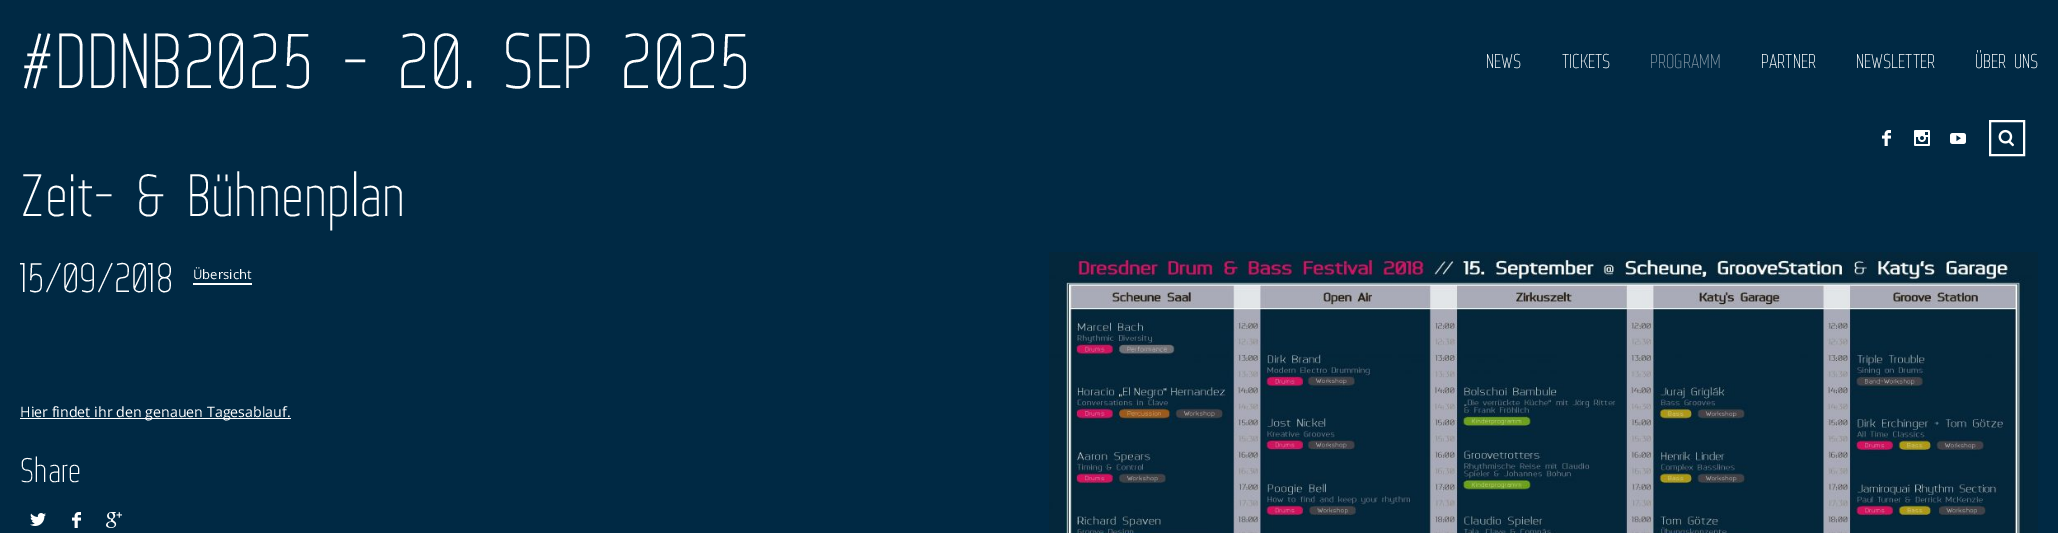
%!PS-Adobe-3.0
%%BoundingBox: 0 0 2058 533
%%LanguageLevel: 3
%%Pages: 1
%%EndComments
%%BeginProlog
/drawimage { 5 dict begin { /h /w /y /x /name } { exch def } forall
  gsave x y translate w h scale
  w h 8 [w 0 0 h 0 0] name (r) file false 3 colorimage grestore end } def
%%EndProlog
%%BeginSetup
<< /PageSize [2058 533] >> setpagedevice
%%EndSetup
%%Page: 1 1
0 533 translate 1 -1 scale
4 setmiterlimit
0 0.161 0.267 setrgbcolor
0 0 2058 533 rectfill
(images/1.raw) 1882 130 9 16 drawimage
(images/2.raw) 1914 130 16 16 drawimage
(images/3.raw) 1950 133 16 11 drawimage
(images/4.raw) 1998 129 16 18 drawimage
1 setgray
2 setlinewidth
1990 121 34 34 rectstroke
193 283 59 2 rectfill
20 418 271 1 rectfill
(images/5.raw) 30 513 16 13 drawimage
(images/1.raw) 72 512 9 16 drawimage
(images/6.raw) 106 512 16 16 drawimage
(images/7.raw) 1049 252 989 281 drawimage
/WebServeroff-Regular [78 0 0 -78 0 0] selectfont
20 88 moveto (#DDNB2025 - 20. SEP 2025) show
/WebServeroff-Regular [20 0 0 -20 0 0] selectfont
1486 68 moveto (NEWS) show
1562 68 moveto (TICKETS) show
0.502 0.58 0.635 setrgbcolor
1650 68 moveto (PROGRAMM) show
1 setgray
1761 68 moveto (PARTNER) show
1856 68 moveto (NEWSLETTER) show
1975 68 moveto (ÜBER UNS) show
/WebServeroff-Regular [59.75 0 0 -59.75 0 0] selectfont
20 216 moveto (Zeit- & Bühnenplan) show
/WebServeroff-Regular [41.5 0 0 -41.5 0 0] selectfont
20 292 moveto (15/09/2018) show
/OpenSans-Regular [13 0 0 -13 0 0] selectfont
193 279 moveto (Übersicht) show
/OpenSans-Regular [14.25 0 0 -14.25 0 0] selectfont
20 417 moveto (Hier findet ihr den genauen Tagesablauf.) show
/WebServeroff-Regular [34 0 0 -34 0 0] selectfont
20 482 moveto (Share) show
showpage
%%EOF
